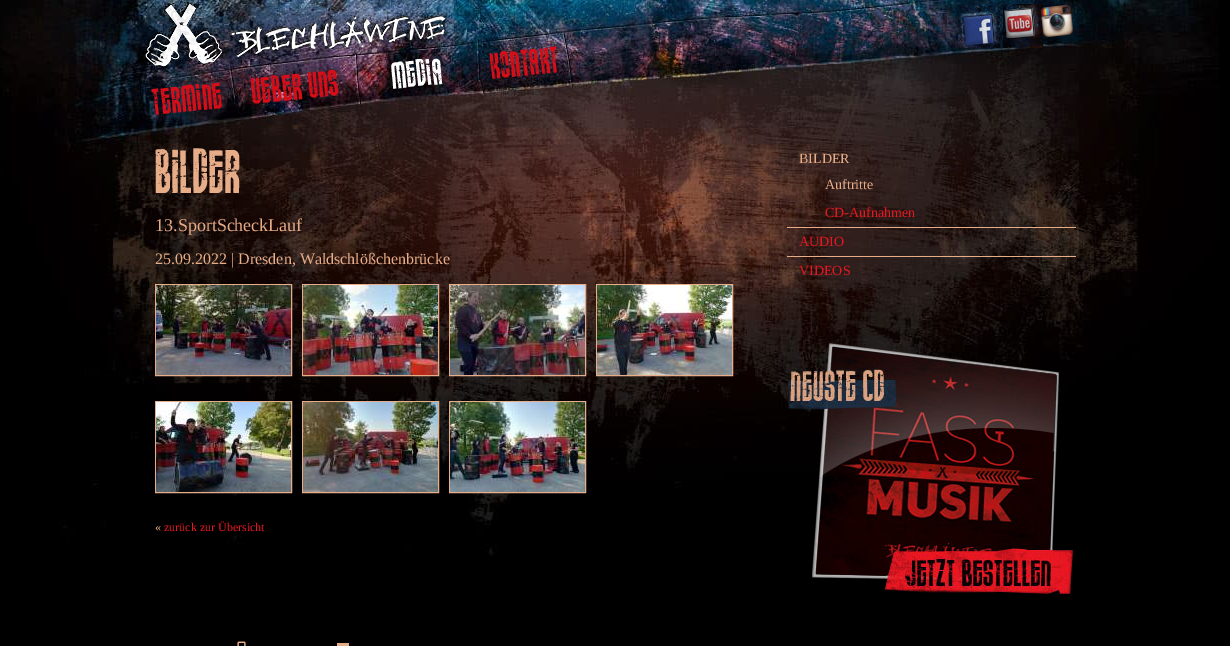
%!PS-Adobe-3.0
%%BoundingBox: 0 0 1230 646
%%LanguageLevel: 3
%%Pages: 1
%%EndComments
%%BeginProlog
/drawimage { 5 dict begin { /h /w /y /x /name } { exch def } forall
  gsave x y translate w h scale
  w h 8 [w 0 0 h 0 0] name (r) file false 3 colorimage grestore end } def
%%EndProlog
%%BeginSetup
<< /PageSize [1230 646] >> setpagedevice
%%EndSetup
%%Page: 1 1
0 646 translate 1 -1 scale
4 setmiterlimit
0 setgray
0 0 1230 646 rectfill
(images/1.raw) 0 0 1219 556 drawimage
(images/2.raw) 140 0 309 68 drawimage
(images/3.raw) 958 4 42 44 drawimage
(images/4.raw) 1003 4 40 44 drawimage
(images/5.raw) 1040 4 34 34 drawimage
0.906 0.675 0.533 setrgbcolor
155.5 284.5 136 91 rectstroke
(images/6.raw) 156 285 135 90 drawimage
302.5 284.5 136 91 rectstroke
(images/7.raw) 303 285 135 90 drawimage
449.5 284.5 136 91 rectstroke
(images/8.raw) 450 285 135 90 drawimage
596.5 284.5 136 91 rectstroke
(images/9.raw) 597 285 135 90 drawimage
155.5 401.5 136 91 rectstroke
(images/10.raw) 156 402 135 90 drawimage
302.5 401.5 136 91 rectstroke
(images/11.raw) 303 402 135 90 drawimage
449.5 401.5 136 91 rectstroke
(images/12.raw) 450 402 135 90 drawimage
787 227 289 1 rectfill
787 256 289 1 rectfill
(images/13.raw) 788 342 286 253 drawimage
(images/14.raw) 237 641 9 5 drawimage
337 643 12 3 rectfill
/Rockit-Regular [12 0 0 -12 0 0] selectfont
0.843 0.051 0.094 setrgbcolor
gsave 154 115 translate -6 rotate 0 0 moveto 0.5 0 (TERMINE) ashow grestore
gsave 253 104 translate -6 rotate 0 0 moveto 0.5 0 (UEBER UNS) ashow grestore
1 setgray
gsave 393 89 translate -6 rotate 0 0 moveto 0.5 0 (MEDIA) ashow grestore
0.843 0.051 0.094 setrgbcolor
gsave 492 79 translate -6 rotate 0 0 moveto 0.5 0 (KONTAKT) ashow grestore
/Rockit-Regular [20 0 0 -20 0 0] selectfont
0.906 0.675 0.533 setrgbcolor
155 193 moveto (BILDER) show
/LiberationSerif-Regular [18 0 0 -18 0 0] selectfont
155 231 moveto (13.SportScheckLauf) show
/LiberationSerif-Regular [16 0 0 -16 0 0] selectfont
155 264 moveto (25.09.2022 | Dresden, Waldschlößchenbrücke) show
/LiberationSerif-Regular [12 0 0 -12 0 0] selectfont
155 531 moveto («) show
0.91 0.09 0.133 setrgbcolor
164 531 moveto (zurück zur Übersicht) show
/LiberationSerif-Regular [14 0 0 -14 0 0] selectfont
0.906 0.675 0.533 setrgbcolor
799 163 moveto (BILDER) show
825 189 moveto (Auftritte) show
0.91 0.09 0.133 setrgbcolor
825 217 moveto (CD-Aufnahmen) show
799 246 moveto (AUDIO) show
799 275 moveto (VIDEOS) show
showpage
%%EOF
